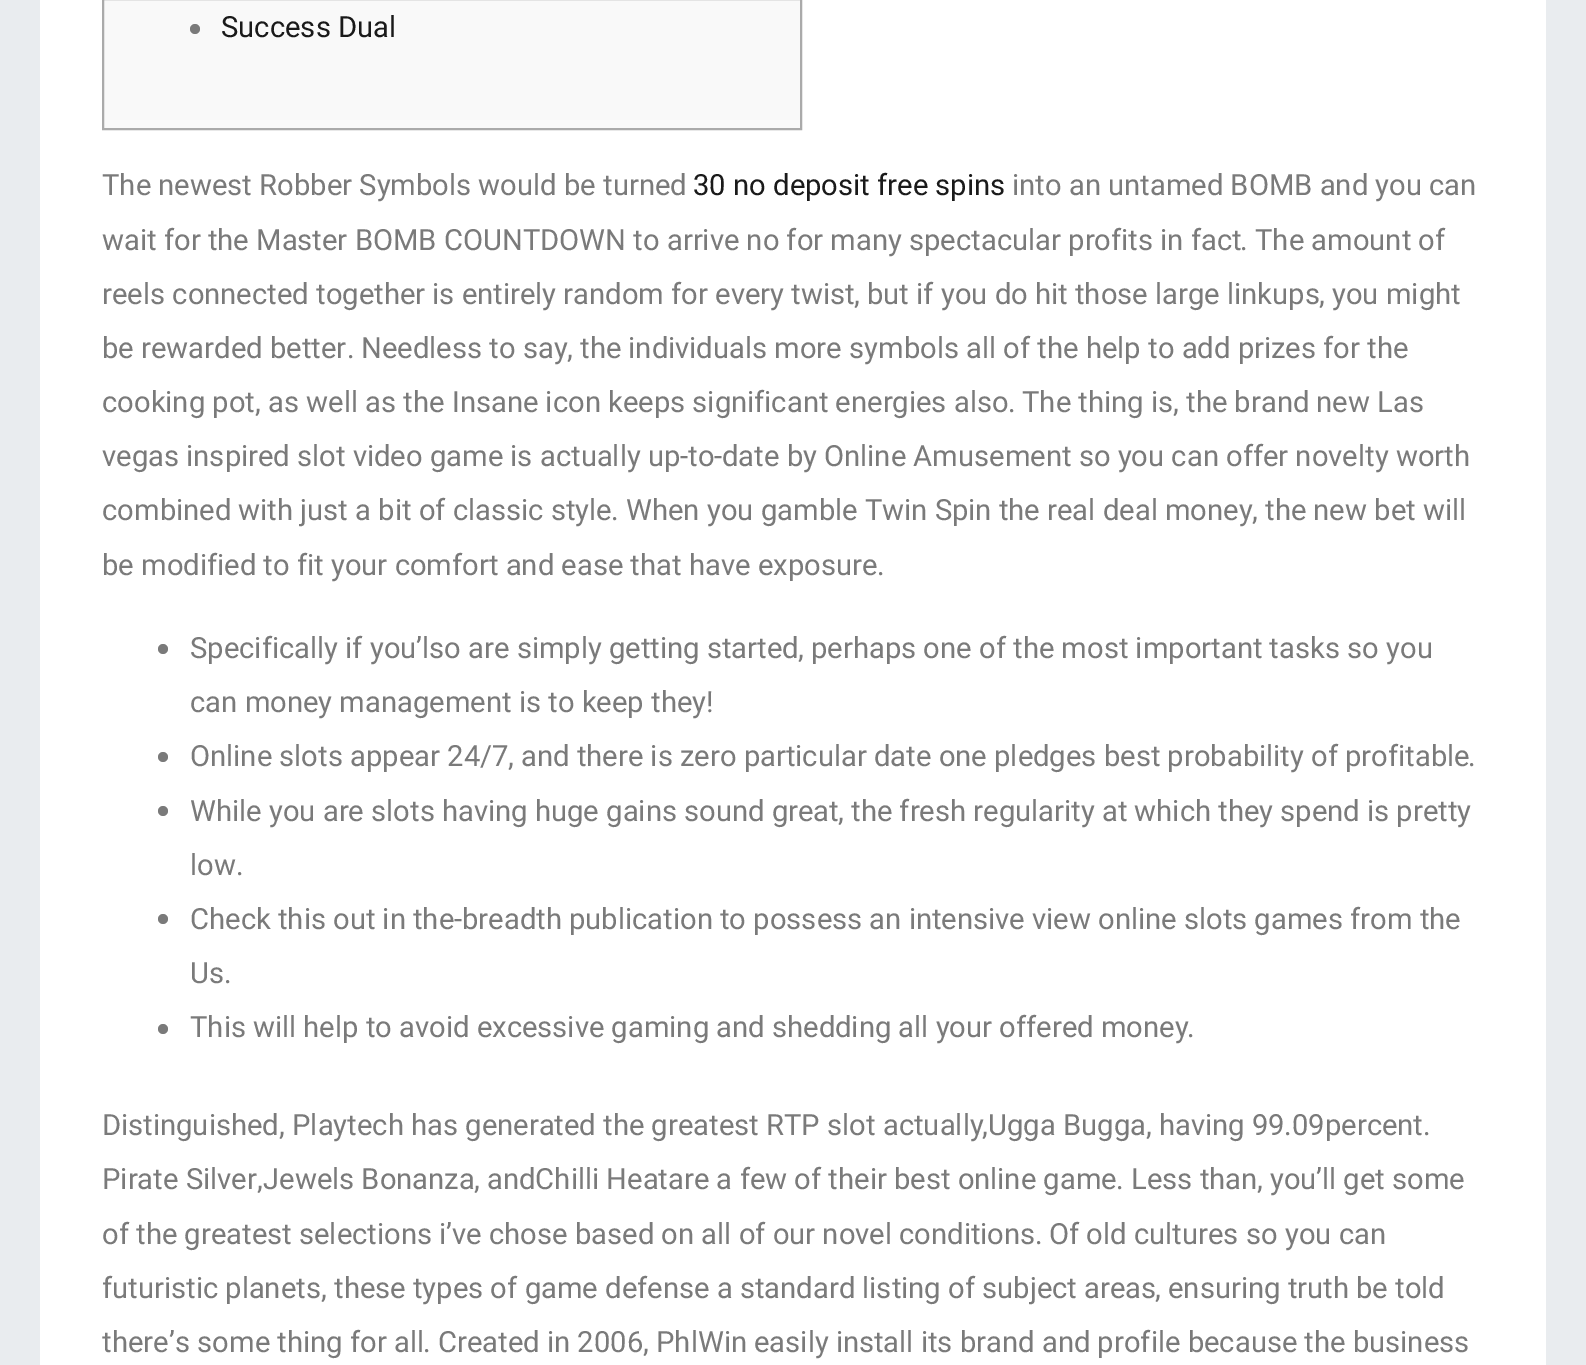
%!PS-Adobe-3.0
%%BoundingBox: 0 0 1586 1365
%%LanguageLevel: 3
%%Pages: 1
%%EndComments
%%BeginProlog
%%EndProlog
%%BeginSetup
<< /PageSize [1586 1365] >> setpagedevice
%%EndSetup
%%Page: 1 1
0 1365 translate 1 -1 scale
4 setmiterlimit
0.914 0.925 0.937 setrgbcolor
0 0 1586 1365 rectfill
1 setgray
40 0 1506 1365 rectfill
0.976 setgray
newpath 103 -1 moveto 801 -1 lineto 801 129 lineto 103 129 lineto closepath gsave fill grestore
0.667 setgray
2 setlinewidth
stroke
0.478 setgray
newpath 195 29 5 0 360 arc closepath fill
newpath 163 649 5 0 360 arc closepath fill
newpath 163 757 5 0 360 arc closepath fill
newpath 163 811 5 0 360 arc closepath fill
newpath 163 919 5 0 360 arc closepath fill
newpath 163 1029 5 0 360 arc closepath fill
/Roboto-Regular [29.2 0 0 -29.2 0 0] selectfont
0.102 setgray
221 37 moveto (Success Dual) show
0.478 setgray
102 195 moveto (The newest Robber Symbols would be turned) show
0.102 setgray
693 195 moveto (30 no deposit free spins) show
0.478 setgray
1012 195 moveto (into an untamed BOMB and you can) show
102 250 moveto (wait for the Master BOMB COUNTDOWN to arrive no for many spectacular profits in fact) show
/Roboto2-Regular [29.2 0 0 -29.2 0 0] selectfont
1240 250 moveto (.) show
/Roboto-Regular [29.2 0 0 -29.2 0 0] selectfont
1255 250 moveto (The amount of) show
102 304 moveto (reels connected together is entirely random for every twist) show
/Roboto2-Regular [29.2 0 0 -29.2 0 0] selectfont
854 304 moveto (,) show
/Roboto-Regular [29.2 0 0 -29.2 0 0] selectfont
867 304 moveto (but if you do hit those large linkups) show
/Roboto2-Regular [29.2 0 0 -29.2 0 0] selectfont
1319 304 moveto (,) show
/Roboto-Regular [29.2 0 0 -29.2 0 0] selectfont
1332 304 moveto (you might) show
102 358 moveto (be rewarded better) show
/Roboto2-Regular [29.2 0 0 -29.2 0 0] selectfont
347 358 moveto (.) show
/Roboto-Regular [29.2 0 0 -29.2 0 0] selectfont
361 358 moveto (Needless to say) show
/Roboto2-Regular [29.2 0 0 -29.2 0 0] selectfont
567 358 moveto (,) show
/Roboto-Regular [29.2 0 0 -29.2 0 0] selectfont
580 358 moveto (the individuals more symbols all of the help to add prizes for the) show
102 412 moveto (cooking pot) show
/Roboto2-Regular [29.2 0 0 -29.2 0 0] selectfont
255 412 moveto (,) show
/Roboto-Regular [29.2 0 0 -29.2 0 0] selectfont
268 412 moveto (as well as the Insane icon keeps significant energies also) show
/Roboto2-Regular [29.2 0 0 -29.2 0 0] selectfont
1008 412 moveto (.) show
/Roboto-Regular [29.2 0 0 -29.2 0 0] selectfont
1022 412 moveto (The thing is) show
/Roboto2-Regular [29.2 0 0 -29.2 0 0] selectfont
1173 412 moveto (,) show
/Roboto-Regular [29.2 0 0 -29.2 0 0] selectfont
1186 412 moveto (the brand new Las) show
102 466 moveto (vegas inspired slot video game is actually up) show
/Roboto2-Regular [29.2 0 0 -29.2 0 0] selectfont
680 466 moveto (-) show
/Roboto-Regular [29.2 0 0 -29.2 0 0] selectfont
688 466 moveto (to) show
/Roboto2-Regular [29.2 0 0 -29.2 0 0] selectfont
714 466 moveto (-) show
/Roboto-Regular [29.2 0 0 -29.2 0 0] selectfont
722 466 moveto (date by Online Amusement so you can offer novelty worth) show
102 520 moveto (combined with just a bit of classic style) show
/Roboto2-Regular [29.2 0 0 -29.2 0 0] selectfont
611 520 moveto (.) show
/Roboto-Regular [29.2 0 0 -29.2 0 0] selectfont
626 520 moveto (When you gamble Twin Spin the real deal money) show
/Roboto2-Regular [29.2 0 0 -29.2 0 0] selectfont
1252 520 moveto (,) show
/Roboto-Regular [29.2 0 0 -29.2 0 0] selectfont
1265 520 moveto (the new bet will) show
102 575 moveto (be modified to fit your comfort and ease that have exposure) show
/Roboto2-Regular [29.2 0 0 -29.2 0 0] selectfont
877 575 moveto (.) show
/Roboto-Regular [29.2 0 0 -29.2 0 0] selectfont
190 658 moveto (Specifically if you) show
/Roboto2-Regular [29.2 0 0 -29.2 0 0] selectfont
416 658 moveto (’) show
/Roboto-Regular [29.2 0 0 -29.2 0 0] selectfont
422 658 moveto (lso are simply getting started) show
811 658 moveto (perhaps one of the most important tasks so you) show
/Roboto2-Regular [29.2 0 0 -29.2 0 0] selectfont
798 658 moveto (,) show
/Roboto-Regular [29.2 0 0 -29.2 0 0] selectfont
190 712 moveto (can money management is to keep they) show
/Roboto2-Regular [29.2 0 0 -29.2 0 0] selectfont
706 712 moveto (!) show
/Roboto-Regular [29.2 0 0 -29.2 0 0] selectfont
190 766 moveto (Online slots appear 24) show
/Roboto2-Regular [29.2 0 0 -29.2 0 0] selectfont
480 766 moveto (/) show
/Roboto-Regular [29.2 0 0 -29.2 0 0] selectfont
492 766 moveto (7) show
521 766 moveto (and there is zero particular date one pledges best probability of profitable) show
/Roboto2-Regular [29.2 0 0 -29.2 0 0] selectfont
508 766 moveto (,) show
1468 766 moveto (.) show
/Roboto-Regular [29.2 0 0 -29.2 0 0] selectfont
190 821 moveto (While you are slots having huge gains sound great) show
851 821 moveto (the fresh regularity at which they spend is pretty) show
/Roboto2-Regular [29.2 0 0 -29.2 0 0] selectfont
838 821 moveto (,) show
/Roboto-Regular [29.2 0 0 -29.2 0 0] selectfont
190 875 moveto (low) show
/Roboto2-Regular [29.2 0 0 -29.2 0 0] selectfont
236 875 moveto (.) show
/Roboto-Regular [29.2 0 0 -29.2 0 0] selectfont
190 929 moveto (Check this out in the) show
/Roboto2-Regular [29.2 0 0 -29.2 0 0] selectfont
454 929 moveto (-) show
/Roboto-Regular [29.2 0 0 -29.2 0 0] selectfont
462 929 moveto (breadth publication to possess an intensive view online slots games from the) show
190 983 moveto (Us) show
/Roboto2-Regular [29.2 0 0 -29.2 0 0] selectfont
224 983 moveto (.) show
/Roboto-Regular [29.2 0 0 -29.2 0 0] selectfont
190 1037 moveto (This will help to avoid excessive gaming and shedding all your offered money) show
/Roboto2-Regular [29.2 0 0 -29.2 0 0] selectfont
1187 1037 moveto (.) show
/Roboto-Regular [29.2 0 0 -29.2 0 0] selectfont
102 1135 moveto (Distinguished) show
/Roboto2-Regular [29.2 0 0 -29.2 0 0] selectfont
279 1135 moveto (,) show
/Roboto-Regular [29.2 0 0 -29.2 0 0] selectfont
292 1135 moveto (Playtech has generated the greatest RTP slot actually) show
/Roboto2-Regular [29.2 0 0 -29.2 0 0] selectfont
982 1135 moveto (,) show
/Roboto-Regular [29.2 0 0 -29.2 0 0] selectfont
988 1135 moveto (Ugga Bugga) show
/Roboto2-Regular [29.2 0 0 -29.2 0 0] selectfont
1146 1135 moveto (,) show
/Roboto-Regular [29.2 0 0 -29.2 0 0] selectfont
1159 1135 moveto (having 99) show
/Roboto2-Regular [29.2 0 0 -29.2 0 0] selectfont
1284 1135 moveto (.) show
/Roboto-Regular [29.2 0 0 -29.2 0 0] selectfont
1292 1135 moveto (09percent) show
/Roboto2-Regular [29.2 0 0 -29.2 0 0] selectfont
1423 1135 moveto (.) show
/Roboto-Regular [29.2 0 0 -29.2 0 0] selectfont
102 1189 moveto (Pirate Silver) show
/Roboto2-Regular [29.2 0 0 -29.2 0 0] selectfont
257 1189 moveto (,) show
/Roboto-Regular [29.2 0 0 -29.2 0 0] selectfont
263 1189 moveto (Jewels Bonanza) show
/Roboto2-Regular [29.2 0 0 -29.2 0 0] selectfont
474 1189 moveto (,) show
/Roboto-Regular [29.2 0 0 -29.2 0 0] selectfont
487 1189 moveto (andChilli Heatare a few of their best online game) show
/Roboto2-Regular [29.2 0 0 -29.2 0 0] selectfont
1116 1189 moveto (.) show
/Roboto-Regular [29.2 0 0 -29.2 0 0] selectfont
1131 1189 moveto (Less than) show
/Roboto2-Regular [29.2 0 0 -29.2 0 0] selectfont
1257 1189 moveto (,) show
/Roboto-Regular [29.2 0 0 -29.2 0 0] selectfont
1270 1189 moveto (you) show
/Roboto2-Regular [29.2 0 0 -29.2 0 0] selectfont
1316 1189 moveto (’) show
/Roboto-Regular [29.2 0 0 -29.2 0 0] selectfont
1322 1189 moveto (ll get some) show
102 1244 moveto (of the greatest selections i) show
/Roboto2-Regular [29.2 0 0 -29.2 0 0] selectfont
446 1244 moveto (’) show
/Roboto-Regular [29.2 0 0 -29.2 0 0] selectfont
452 1244 moveto (ve chose based on all of our novel conditions) show
1049 1244 moveto (Of old cultures so you can) show
/Roboto2-Regular [29.2 0 0 -29.2 0 0] selectfont
1035 1244 moveto (.) show
/Roboto-Regular [29.2 0 0 -29.2 0 0] selectfont
102 1298 moveto (futuristic planets) show
/Roboto2-Regular [29.2 0 0 -29.2 0 0] selectfont
321 1298 moveto (,) show
/Roboto-Regular [29.2 0 0 -29.2 0 0] selectfont
334 1298 moveto (these types of game defense a standard listing of subject areas) show
/Roboto2-Regular [29.2 0 0 -29.2 0 0] selectfont
1155 1298 moveto (,) show
/Roboto-Regular [29.2 0 0 -29.2 0 0] selectfont
1168 1298 moveto (ensuring truth be told) show
102 1352 moveto (there) show
/Roboto2-Regular [29.2 0 0 -29.2 0 0] selectfont
169 1352 moveto (’) show
/Roboto-Regular [29.2 0 0 -29.2 0 0] selectfont
175 1352 moveto (s some thing for all) show
/Roboto2-Regular [29.2 0 0 -29.2 0 0] selectfont
423 1352 moveto (.) show
/Roboto-Regular [29.2 0 0 -29.2 0 0] selectfont
438 1352 moveto (Created in 2006) show
/Roboto2-Regular [29.2 0 0 -29.2 0 0] selectfont
643 1352 moveto (,) show
/Roboto-Regular [29.2 0 0 -29.2 0 0] selectfont
656 1352 moveto (PhlWin easily install its brand and profile because the business) show
showpage
%%EOF
